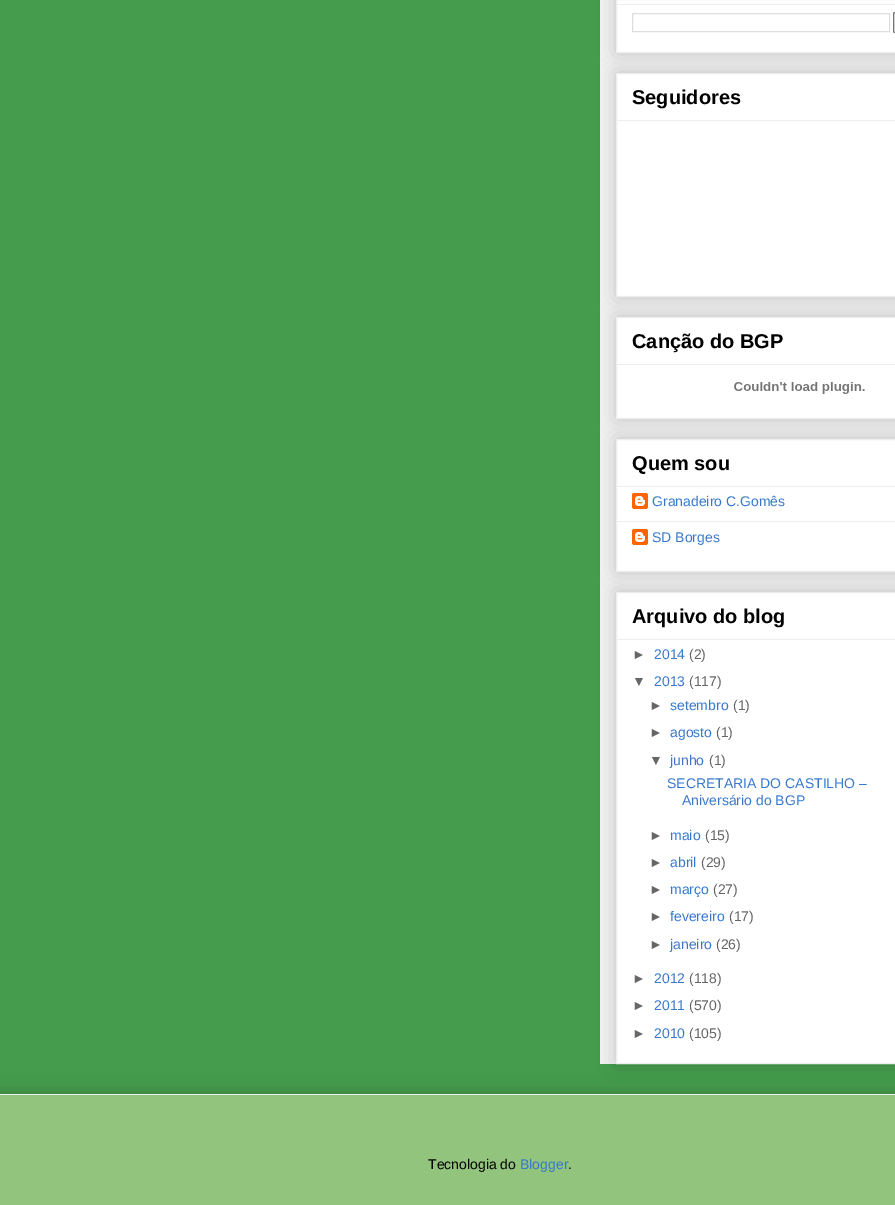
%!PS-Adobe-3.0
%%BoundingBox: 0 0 895 1205
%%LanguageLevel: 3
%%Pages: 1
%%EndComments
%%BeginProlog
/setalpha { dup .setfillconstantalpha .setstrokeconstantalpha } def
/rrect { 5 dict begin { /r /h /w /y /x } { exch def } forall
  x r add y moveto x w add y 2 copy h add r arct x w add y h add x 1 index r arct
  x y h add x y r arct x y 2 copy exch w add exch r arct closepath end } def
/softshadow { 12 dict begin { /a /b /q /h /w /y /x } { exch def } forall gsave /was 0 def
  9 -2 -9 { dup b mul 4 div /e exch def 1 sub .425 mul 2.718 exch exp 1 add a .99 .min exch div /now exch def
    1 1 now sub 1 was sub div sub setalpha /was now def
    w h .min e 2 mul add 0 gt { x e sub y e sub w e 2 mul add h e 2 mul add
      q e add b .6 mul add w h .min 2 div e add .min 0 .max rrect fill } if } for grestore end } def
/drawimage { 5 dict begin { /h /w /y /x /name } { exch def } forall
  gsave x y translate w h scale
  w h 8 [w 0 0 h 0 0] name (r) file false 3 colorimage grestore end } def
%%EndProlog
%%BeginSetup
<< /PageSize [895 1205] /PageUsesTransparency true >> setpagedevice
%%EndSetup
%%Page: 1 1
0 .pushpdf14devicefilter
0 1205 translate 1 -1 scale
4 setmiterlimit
0.275 0.612 0.302 setrgbcolor
0 0 895 1205 rectfill
0.953 setgray
600 0 295 1064 rectfill
0 setgray
616 -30 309 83 0 10 0.2 softshadow
1 setgray
newpath 616.5 -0.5 moveto 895.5 -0.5 lineto 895.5 52.5 lineto 616.5 52.5 lineto closepath gsave fill grestore
0.933 setgray
stroke
617 4 278 1 rectfill
0.867 setgray
632.5 13.5 257 18 rectstroke
0.937 setgray
893.5 12.5 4 20 1.5 rrect gsave fill grestore
0.463 setgray
stroke
0 setgray
616 73 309 224 0 10 0.2 softshadow
1 setgray
newpath 616.5 73.5 moveto 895.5 73.5 lineto 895.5 296.5 lineto 616.5 296.5 lineto closepath gsave fill grestore
0.933 setgray
stroke
617 120 278 1 rectfill
0 setgray
616 317 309 102 0 10 0.2 softshadow
1 setgray
newpath 616.5 317.5 moveto 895.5 317.5 lineto 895.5 418.5 lineto 616.5 418.5 lineto closepath gsave fill grestore
0.933 setgray
stroke
617 364 278 1 rectfill
(images/1.raw) 734 382 131 12 drawimage
0 setgray
616 439 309 133 0 10 0.2 softshadow
1 setgray
newpath 616.5 439.5 moveto 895.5 439.5 lineto 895.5 571.5 lineto 616.5 571.5 lineto closepath gsave fill grestore
0.933 setgray
stroke
617 486 278 1 rectfill
(images/2.raw) 632 493 16 16 drawimage
617 521 278 1 rectfill
(images/2.raw) 632 529 16 16 drawimage
0 setgray
616 592 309 472 0 10 0.2 softshadow
1 setgray
newpath 616.5 592.5 moveto 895.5 592.5 lineto 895.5 1063.5 lineto 616.5 1063.5 lineto closepath gsave fill grestore
0.933 setgray
stroke
617 639 278 1 rectfill
0 setgray
-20 1094 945 111 0 10 0.2 softshadow
0.576 0.769 0.49 setrgbcolor
0 1095 895 110 rectfill
0.933 setgray
0 1094 895 1 rectfill
/LiberationSans-Bold [20 0 0 -20 0 0] selectfont
0 setgray
632 104 moveto (Seguidores) show
632 348 moveto (Canção do BGP) show
632 470 moveto (Quem sou) show
/LiberationSans-Regular [14 0 0 -14 0 0] selectfont
0.216 0.471 0.804 setrgbcolor
652 506 moveto (Granadeiro C.Gomês) show
652 542 moveto (SD Borges) show
/LiberationSans-Bold [20 0 0 -20 0 0] selectfont
0 setgray
632 623 moveto (Arquivo do blog) show
/LiberationSans-Regular [14 0 0 -14 0 0] selectfont
0.4 setgray
632 659 moveto (►) show
0.216 0.471 0.804 setrgbcolor
654 659 moveto (2014) show
0.4 setgray
689 659 moveto (\(2\)) show
632 686 moveto (▼) show
0.216 0.471 0.804 setrgbcolor
654 686 moveto (2013) show
0.4 setgray
689 686 moveto (\(117\)) show
649 710 moveto (►) show
0.216 0.471 0.804 setrgbcolor
670 710 moveto (setembro) show
0.4 setgray
733 710 moveto (\(1\)) show
649 737 moveto (►) show
0.216 0.471 0.804 setrgbcolor
670 737 moveto (agosto) show
0.4 setgray
716 737 moveto (\(1\)) show
649 765 moveto (▼) show
0.216 0.471 0.804 setrgbcolor
670 765 moveto (junho) show
0.4 setgray
709 765 moveto (\(1\)) show
0.216 0.471 0.804 setrgbcolor
667 788 moveto (SECRETARIA DO CASTILHO –) show
682 805 moveto (Aniversário do BGP) show
0.4 setgray
649 840 moveto (►) show
0.216 0.471 0.804 setrgbcolor
670 840 moveto (maio) show
0.4 setgray
705 840 moveto (\(15\)) show
649 867 moveto (►) show
0.216 0.471 0.804 setrgbcolor
670 867 moveto (abril) show
0.4 setgray
701 867 moveto (\(29\)) show
649 894 moveto (►) show
0.216 0.471 0.804 setrgbcolor
670 894 moveto (março) show
0.4 setgray
713 894 moveto (\(27\)) show
649 921 moveto (►) show
0.216 0.471 0.804 setrgbcolor
670 921 moveto (fevereiro) show
0.4 setgray
729 921 moveto (\(17\)) show
649 949 moveto (►) show
0.216 0.471 0.804 setrgbcolor
670 949 moveto (janeiro) show
0.4 setgray
716 949 moveto (\(26\)) show
632 983 moveto (►) show
0.216 0.471 0.804 setrgbcolor
654 983 moveto (2012) show
0.4 setgray
689 983 moveto (\(118\)) show
632 1010 moveto (►) show
0.216 0.471 0.804 setrgbcolor
654 1010 moveto (2011) show
0.4 setgray
689 1010 moveto (\(570\)) show
632 1038 moveto (►) show
0.216 0.471 0.804 setrgbcolor
654 1038 moveto (2010) show
0.4 setgray
689 1038 moveto (\(105\)) show
0 setgray
428 1169 moveto (Tecnologia do) show
0.216 0.471 0.804 setrgbcolor
520 1169 moveto (Blogger) show
0 setgray
568 1169 moveto (.) show
.poppdf14devicefilter showpage
%%EOF
